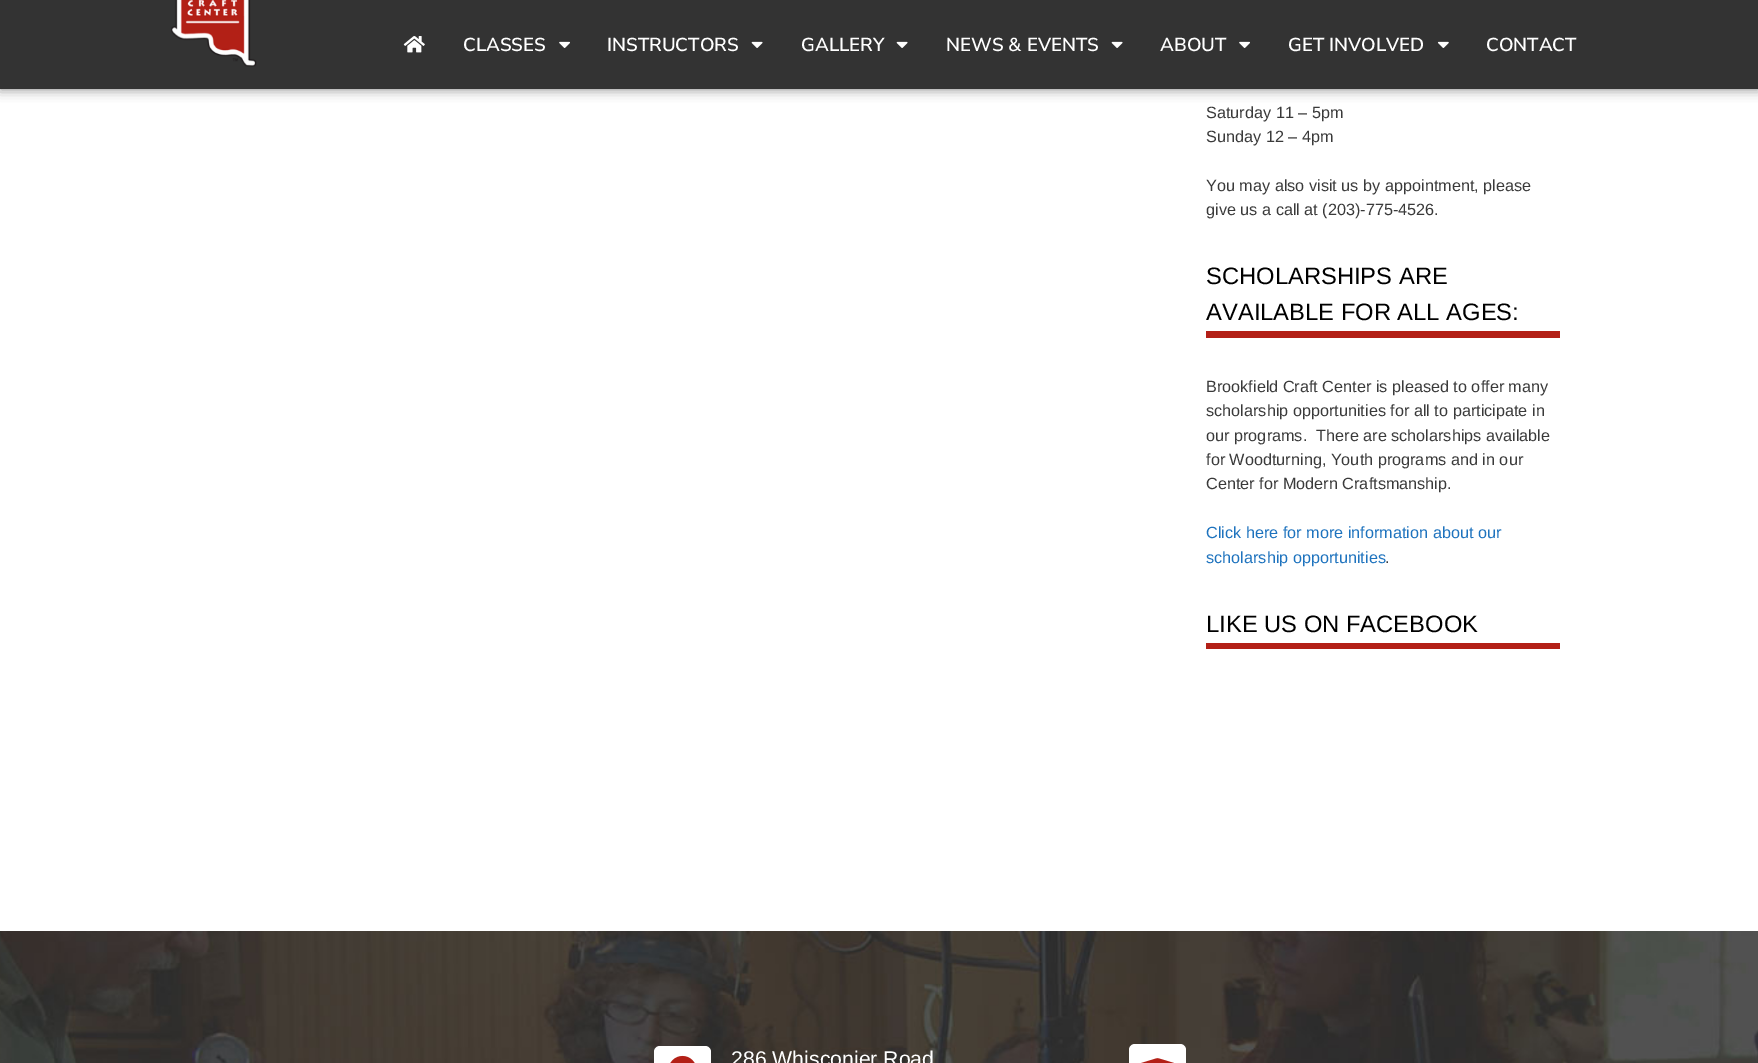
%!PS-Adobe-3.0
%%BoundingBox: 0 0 1758 1063
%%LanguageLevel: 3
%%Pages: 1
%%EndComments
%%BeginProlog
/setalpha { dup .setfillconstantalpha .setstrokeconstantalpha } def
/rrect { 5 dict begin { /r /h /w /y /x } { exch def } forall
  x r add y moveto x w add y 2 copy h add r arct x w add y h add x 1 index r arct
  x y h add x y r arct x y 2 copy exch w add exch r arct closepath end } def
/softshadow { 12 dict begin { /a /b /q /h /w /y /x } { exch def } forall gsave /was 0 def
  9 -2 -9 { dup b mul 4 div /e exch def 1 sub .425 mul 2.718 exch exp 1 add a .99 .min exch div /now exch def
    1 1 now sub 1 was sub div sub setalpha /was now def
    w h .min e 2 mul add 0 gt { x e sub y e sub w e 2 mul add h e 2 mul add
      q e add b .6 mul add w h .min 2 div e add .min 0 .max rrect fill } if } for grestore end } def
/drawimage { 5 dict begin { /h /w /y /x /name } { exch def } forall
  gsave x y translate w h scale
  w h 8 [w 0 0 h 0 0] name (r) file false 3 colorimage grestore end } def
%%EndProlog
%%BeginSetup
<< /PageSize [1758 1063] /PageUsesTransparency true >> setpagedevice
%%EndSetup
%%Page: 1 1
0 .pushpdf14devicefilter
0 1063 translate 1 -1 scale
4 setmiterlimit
1 setgray
0 0 1758 1063 rectfill
gsave
newpath 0 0 moveto 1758 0 lineto 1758 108 lineto 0 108 lineto closepath 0 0 moveto 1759 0 lineto 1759 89 lineto 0 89 lineto closepath eoclip newpath
0 setgray
0 0 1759 89 0 6 0.5 softshadow
grestore
0.8 setalpha
0 setgray
0 0 1758 89 rectfill
1 setalpha
(images/1.raw) 171 0 86 67 drawimage
(images/2.raw) 403 36 22 17 drawimage
(images/3.raw) 559 41 11 7 drawimage
(images/4.raw) 751 41 12 7 drawimage
(images/4.raw) 896 41 12 7 drawimage
(images/4.raw) 1111 41 12 7 drawimage
(images/3.raw) 1239 41 11 7 drawimage
(images/5.raw) 1437 41 12 7 drawimage
0.702 0.125 0.09 setrgbcolor
1206 331 354 7 rectfill
1206 643 354 6 rectfill
(images/6.raw) 0 931 1758 132 drawimage
1 setgray
654 1046 57 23 6 rrect fill
(images/7.raw) 670 1055 25 8 drawimage
1129 1044 57 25 6 rrect fill
(images/8.raw) 1141 1058 33 5 drawimage
/NunitoSans-SemiBold [18.75 0 0 -18.75 0 0] selectfont
463 51 moveto (CLASSES) show
607 51 moveto (INSTRUCTORS) show
801 51 moveto (GALLERY) show
946 51 moveto (NEWS & EVENTS) show
1160 51 moveto (ABOUT) show
1288 51 moveto (GET INVOLVED) show
1486 51 moveto (CONTACT) show
/LiberationSans-Regular [16.25 0 0 -16.25 0 0] selectfont
0.227 setgray
1206 118 moveto (Saturday 11 – 5pm) show
1206 142 moveto (Sunday 12 – 4pm) show
1206 191 moveto (You may also visit us by appointment, please) show
1206 215 moveto (give us a call at \(203\)-775-4526.) show
/LiberationSans-Regular [23.75 0 0 -23.75 0 0] selectfont
0 setgray
1206 284 moveto (SCHOLARSHIPS ARE) show
1206 320 moveto (AVAILABLE FOR ALL AGES:) show
/LiberationSans-Regular [16.25 0 0 -16.25 0 0] selectfont
0.227 setgray
1206 392 moveto (Brookfield Craft Center is pleased to offer many) show
1206 416 moveto (scholarship opportunities for all to participate in) show
1206 441 moveto (our programs.  There are scholarships available) show
1206 465 moveto (for Woodturning, Youth programs and in our) show
1206 489 moveto (Center for Modern Craftsmanship.) show
0.118 0.451 0.745 setrgbcolor
1206 538 moveto (Click here for more information about our) show
1206 563 moveto (scholarship opportunities) show
0.227 setgray
1385 563 moveto (.) show
/LiberationSans-Regular [23.75 0 0 -23.75 0 0] selectfont
0 setgray
1206 632 moveto (LIKE US ON FACEBOOK) show
/LiberationSans-Regular [21.25 0 0 -21.25 0 0] selectfont
1 setgray
731 1066 moveto (286 Whisconier Road) show
.poppdf14devicefilter showpage
%%EOF
